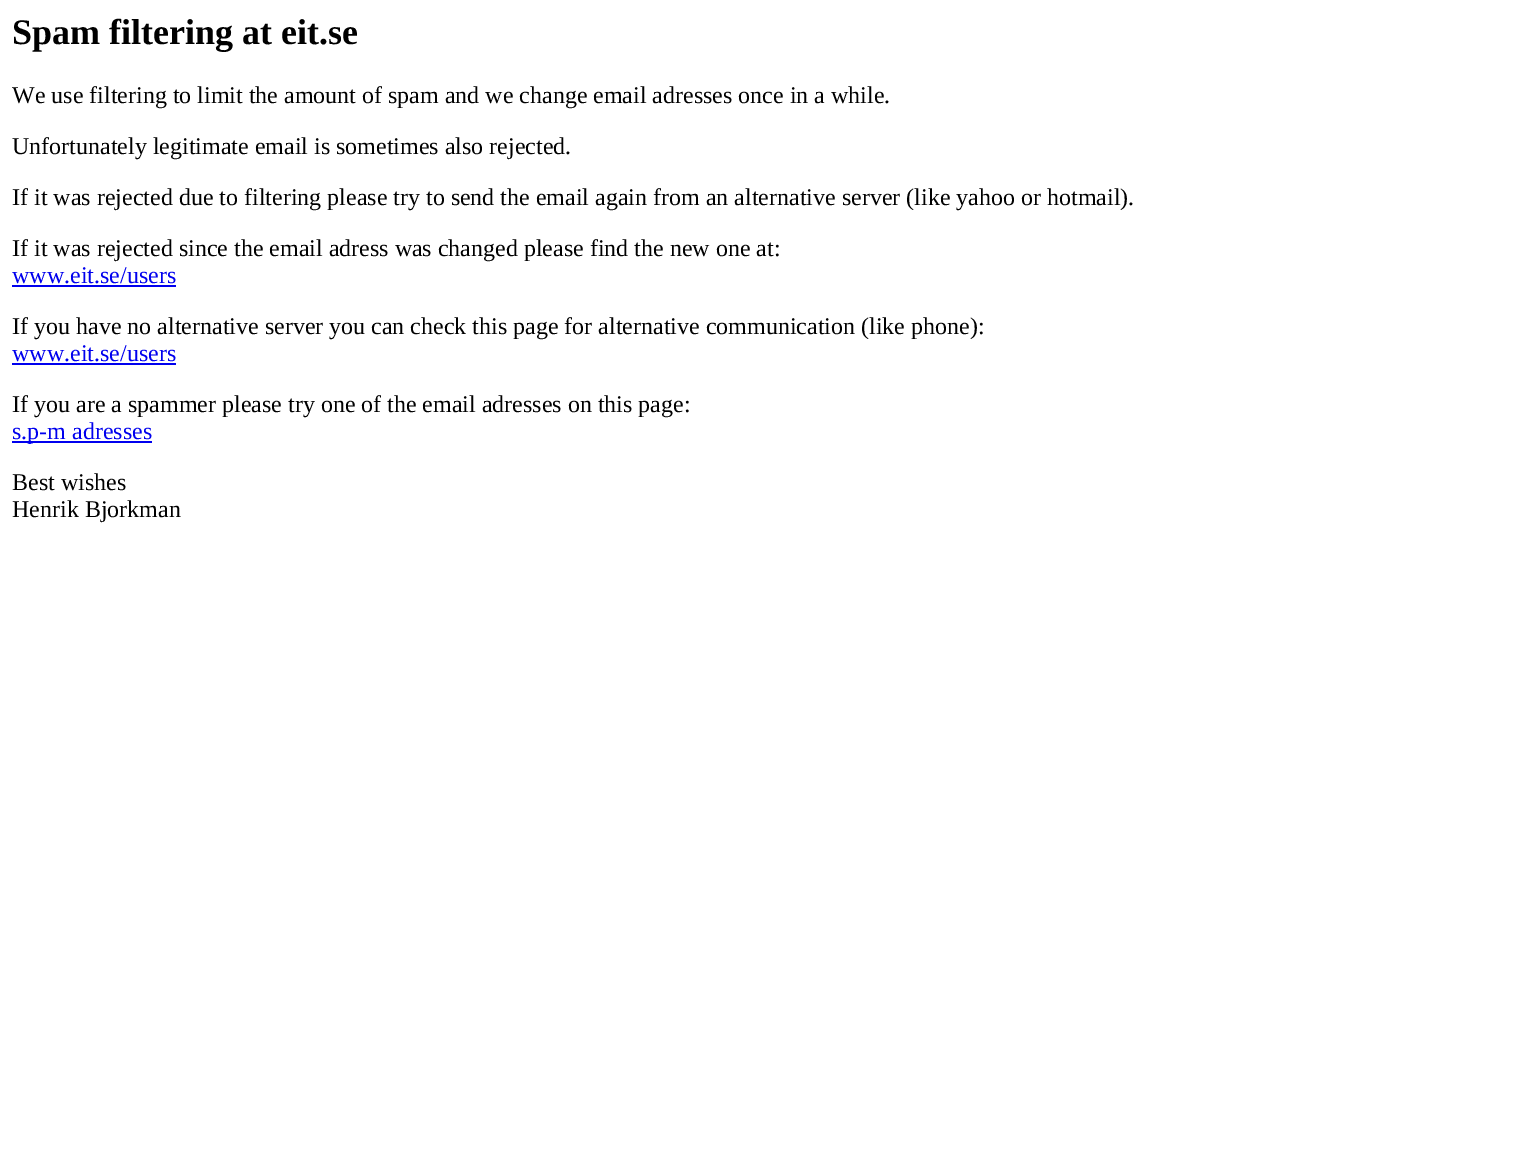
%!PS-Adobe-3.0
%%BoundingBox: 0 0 1535 1165
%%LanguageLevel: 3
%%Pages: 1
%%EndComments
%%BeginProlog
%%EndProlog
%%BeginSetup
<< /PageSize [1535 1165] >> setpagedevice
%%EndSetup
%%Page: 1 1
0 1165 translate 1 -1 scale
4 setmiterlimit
1 setgray
0 0 1535 1165 rectfill
0 0 0.933 setrgbcolor
12 285 164 2 rectfill
12 363 164 2 rectfill
12 441 140 2 rectfill
/LiberationSerif-Bold [36 0 0 -36 0 0] selectfont
0 setgray
12 44 moveto (Spam filtering at eit.se) show
/LiberationSerif-Regular [24 0 0 -24 0 0] selectfont
12 103 moveto (We use filtering to limit the amount of spam and we change email adresses once in a while.) show
12 154 moveto (Unfortunately legitimate email is sometimes also rejected.) show
12 205 moveto (If it was rejected due to filtering please try to send the email again from an alternative server \(like yahoo or hotmail\).) show
12 256 moveto (If it was rejected since the email adress was changed please find the new one at:) show
0 0 0.933 setrgbcolor
12 283 moveto (www.eit.se/users) show
0 setgray
12 334 moveto (If you have no alternative server you can check this page for alternative communication \(like phone\):) show
0 0 0.933 setrgbcolor
12 361 moveto (www.eit.se/users) show
0 setgray
12 412 moveto (If you are a spammer please try one of the email adresses on this page:) show
0 0 0.933 setrgbcolor
12 439 moveto (s.p-m adresses) show
0 setgray
12 490 moveto (Best wishes) show
12 517 moveto (Henrik Bjorkman) show
showpage
%%EOF
